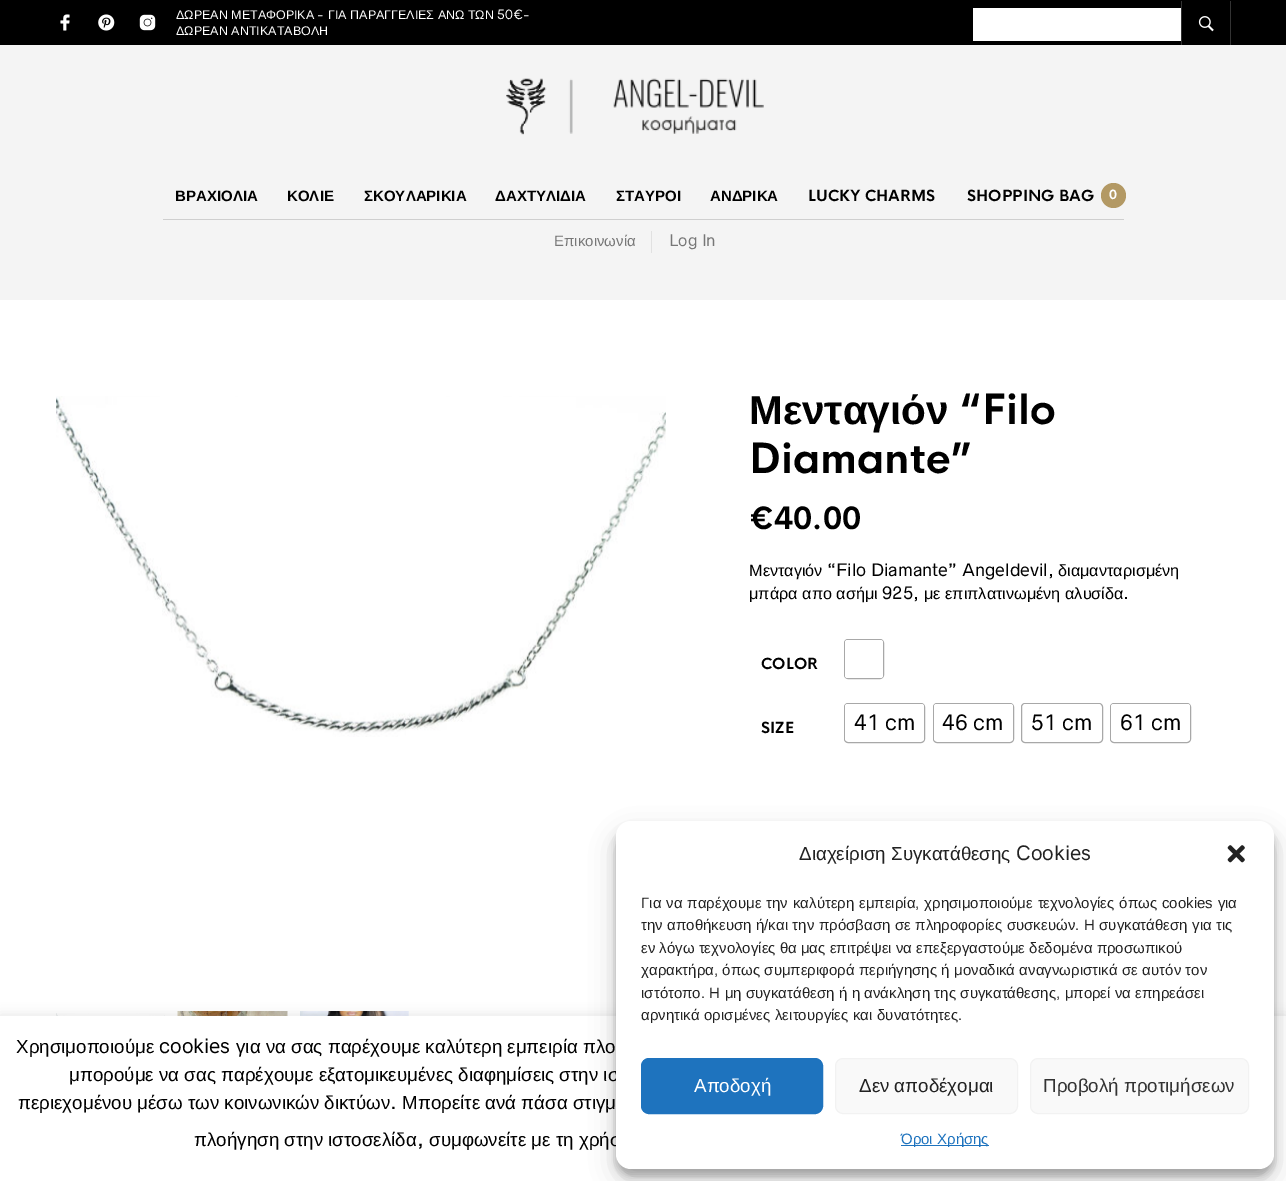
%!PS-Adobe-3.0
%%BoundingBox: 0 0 1286 1181
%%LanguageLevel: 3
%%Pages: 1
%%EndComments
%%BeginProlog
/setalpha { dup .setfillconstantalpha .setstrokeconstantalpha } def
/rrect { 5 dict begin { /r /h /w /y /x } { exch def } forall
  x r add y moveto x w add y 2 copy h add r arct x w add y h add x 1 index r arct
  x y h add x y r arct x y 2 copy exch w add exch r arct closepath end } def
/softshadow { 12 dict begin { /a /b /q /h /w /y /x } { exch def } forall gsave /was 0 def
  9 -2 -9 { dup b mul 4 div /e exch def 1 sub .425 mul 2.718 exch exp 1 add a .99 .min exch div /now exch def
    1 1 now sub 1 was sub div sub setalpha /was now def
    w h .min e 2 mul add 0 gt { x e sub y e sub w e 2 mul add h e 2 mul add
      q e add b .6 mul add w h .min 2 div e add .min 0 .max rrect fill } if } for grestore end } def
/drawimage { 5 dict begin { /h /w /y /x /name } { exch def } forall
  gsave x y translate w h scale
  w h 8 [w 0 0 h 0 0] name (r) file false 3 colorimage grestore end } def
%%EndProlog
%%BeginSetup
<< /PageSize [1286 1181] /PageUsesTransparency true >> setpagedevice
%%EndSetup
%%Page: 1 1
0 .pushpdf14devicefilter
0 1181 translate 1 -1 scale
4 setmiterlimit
1 setgray
0 0 1286 1181 rectfill
0.957 setgray
0 45 1286 255 rectfill
0 setgray
0 0 1286 45 rectfill
(images/1.raw) 60 14 10 17 drawimage
(images/2.raw) 98 14 17 17 drawimage
(images/3.raw) 139 14 17 17 drawimage
1 setgray
973 8 208 33 rectfill
0.2 setgray
1230 1 1 44 rectfill
1181 1 1 44 rectfill
(images/4.raw) 1198 16 16 16 drawimage
(images/5.raw) 506 78 258 57 drawimage
0.812 setgray
163 219 961 1 rectfill
0.702 0.6 0.392 setrgbcolor
newpath 1113.5 195.5 12.5 0 360 arc closepath fill
0.882 setgray
651 231 1 22 rectfill
(images/6.raw) 56 396 610 341 drawimage
(images/7.raw) 56 1013 109 3 drawimage
(images/8.raw) 177 1011 111 5 drawimage
(images/9.raw) 300 1011 109 5 drawimage
0.659 setgray
844.5 639.5 39 39 3.5 rrect stroke
1 setgray
845 640 38 38 2.5 rrect fill
0.659 setgray
844.5 703.5 80 39 3.5 rrect stroke
1 setgray
845 704 79 37 2.5 rrect fill
0.659 setgray
933.5 703.5 80 39 3.5 rrect stroke
1 setgray
934 704 79 37 2.5 rrect fill
0.659 setgray
1021.5 703.5 81 39 3.5 rrect stroke
1 setgray
1023 704 78 37 2.5 rrect fill
0.659 setgray
1110.5 703.5 80 39 3.5 rrect stroke
1 setgray
1111 704 79 37 2.5 rrect fill
0.675 0.671 0.671 setrgbcolor
0 1015 1286 165 0 6 0.3 softshadow
1 setgray
0 1016 1286 165 rectfill
0 setgray
616 829 658 347 15 4 0.23 softshadow
616 834 658 347 15 12.5 0.19 softshadow
/LiberationSans-Regular [12.5 0 0 -12.5 0 0] selectfont
1 setgray
176 19 moveto (ΔΩΡΕΑΝ ΜΕΤΑΦΟΡΙΚΑ) show
/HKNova-Regular [12.5 0 0 -12.5 0 0] selectfont
317 19 moveto (-) show
/LiberationSans-Regular [12.5 0 0 -12.5 0 0] selectfont
328 19 moveto (ΓΙΑ ΠΑΡΑΓΓΕΛΙΕΣ ΑΝΩ ΤΩΝ) show
/HKNova-Regular [12.5 0 0 -12.5 0 0] selectfont
497 19 moveto (50€-) show
/LiberationSans-Regular [12.5 0 0 -12.5 0 0] selectfont
176 35 moveto 0.25 0 32 (ΔΩΡΕΑΝ ΑΝΤΙΚΑΤΑΒΟΛΗ) widthshow
/LiberationSans-Bold [15 0 0 -15 0 0] selectfont
0 setgray
175 201 moveto (ΒΡΑΧΙΟΛΙΑ) show
287 201 moveto (ΚΟΛΙΕ) show
364 201 moveto (ΣΚΟΥΛΑΡΙΚΙΑ) show
495 201 moveto (ΔΑΧΤΥΛΙΔΙΑ) show
616 201 moveto (ΣΤΑΥΡΟΙ) show
710 201 moveto (ΑΝΔΡΙΚΑ) show
/HKNova-Bold [15 0 0 -15 0 0] selectfont
808 201 moveto (LUCKY CHARMS) show
967 201 moveto (SHOPPING BAG) show
/HKNova-Bold [12.5 0 0 -12.5 0 0] selectfont
1 setgray
1109 199 moveto (0) show
/LiberationSans-Regular [15 0 0 -15 0 0] selectfont
0.467 setgray
554 246 moveto (Επικοινωνία) show
/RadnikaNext-Regular [15 0 0 -15 0 0] selectfont
669 246 moveto (Log In) show
/LiberationSans-Bold [40.5 0 0 -40.5 0 0] selectfont
0 setgray
749 424 moveto (Μενταγιόν) show
/HKNova-Bold [40.5 0 0 -40.5 0 0] selectfont
960 424 moveto (“Filo) show
749 473 moveto (Diamante”) show
/HKNova-Bold [30 0 0 -30 0 0] selectfont
749 529 moveto (€40.00) show
/LiberationSans-Regular [16.25 0 0 -16.25 0 0] selectfont
749 576 moveto (Μενταγιόν) show
/RadnikaNext-Regular [16.25 0 0 -16.25 0 0] selectfont
827 576 moveto (“Filo Diamante” Angeldevil,) show
/LiberationSans-Regular [16.25 0 0 -16.25 0 0] selectfont
1058 576 moveto (διαμανταρισμένη) show
749 599 moveto (μπάρα απο ασήμι) show
/RadnikaNext-Regular [16.25 0 0 -16.25 0 0] selectfont
882 599 moveto (925,) show
/LiberationSans-Regular [16.25 0 0 -16.25 0 0] selectfont
924 599 moveto (με επιπλατινωμένη αλυσίδα) show
/RadnikaNext-Regular [16.25 0 0 -16.25 0 0] selectfont
1123 599 moveto (.) show
/HKNova-Bold [15 0 0 -15 0 0] selectfont
761 669 moveto (COLOR) show
761 733 moveto (SIZE) show
/RadnikaNext-Regular [20 0 0 -20 0 0] selectfont
854 730 moveto (41 cm) show
942 730 moveto (46 cm) show
1031 730 moveto (51 cm) show
1120 730 moveto (61 cm) show
/LiberationSans-Regular [18.75 0 0 -18.75 0 0] selectfont
16 1053 moveto (Χρησιμοποιούμε) show
/RadnikaNext-Regular [18.75 0 0 -18.75 0 0] selectfont
159 1053 moveto (cookies) show
/LiberationSans-Regular [18.75 0 0 -18.75 0 0] selectfont
236 1053 moveto (για να σας παρέχουμε καλύτερη εμπειρία πλο) show
69 1081 moveto (μπορούμε να σας παρέχουμε εξατομικευμένες διαφημίσεις στην ισ) show
18 1109 moveto (περιεχομένου μέσω των κοινωνικών δικτύων) show
/RadnikaNext-Regular [18.75 0 0 -18.75 0 0] selectfont
390 1109 moveto (.) show
/LiberationSans-Regular [18.75 0 0 -18.75 0 0] selectfont
402 1109 moveto (Μπορείτε ανά πάσα στιγμ) show
194 1146 moveto (πλοήγηση στην ιστοσελίδα) show
/RadnikaNext-Regular [18.75 0 0 -18.75 0 0] selectfont
417 1146 moveto (,) show
/LiberationSans-Regular [18.75 0 0 -18.75 0 0] selectfont
429 1146 moveto (συμφωνείτε με τη χρήσ) show
1 setgray
616 821 658 348 15 rrect fill
0.133 setgray
799 860 moveto (Διαχείριση Συγκατάθεσης) show
/RadnikaNext-Regular [18.75 0 0 -18.75 0 0] selectfont
1016 860 moveto (Cookies) show
(images/10.raw) 1227 845 18 18 drawimage
/LiberationSans-Regular [15 0 0 -15 0 0] selectfont
641 908 moveto 0.75 0 32 (Για να παρέχουμε την καλύτερη εμπειρία, χρησιμοποιούμε τεχνολογίες όπως cookies για) widthshow
641 930 moveto 0.4 0 32 (την αποθήκευση ή/και την πρόσβαση σε πληροφορίες συσκευών. Η συγκατάθεση για τις) widthshow
641 953 moveto (εν λόγω τεχνολογίες θα μας επιτρέψει να επεξεργαστούμε δεδομένα προσωπικού) show
641 975 moveto 0.25 0 32 (χαρακτήρα, όπως συμπεριφορά περιήγησης ή μοναδικά αναγνωριστικά σε αυτόν τον) widthshow
641 998 moveto 0.25 0 32 (ιστότοπο. Η μη συγκατάθεση ή η ανάκληση της συγκατάθεσης, μπορεί να επηρεάσει) widthshow
641 1020 moveto 0.5 0 32 (αρνητικά ορισμένες λειτουργίες και δυνατότητες.) widthshow
0.118 0.451 0.745 setrgbcolor
641.5 1058.5 181 55 7.5 rrect gsave fill grestore
stroke
/LiberationSans-Regular [18.75 0 0 -18.75 0 0] selectfont
1 setgray
694 1092 moveto (Αποδοχή) show
0.976 setgray
835.5 1058.5 182 55 7.5 rrect gsave fill grestore
0.949 setgray
stroke
0.133 setgray
859 1092 moveto (Δεν αποδέχομαι) show
0.976 setgray
1030.5 1058.5 218 55 7.5 rrect gsave fill grestore
0.949 setgray
stroke
0.2 setgray
1043 1092 moveto (Προβολή προτιμήσεων) show
0.118 0.451 0.745 setrgbcolor
901 1145 88 1 rectfill
/LiberationSans-Regular [15 0 0 -15 0 0] selectfont
901 1144 moveto (Όροι Χρήσης) show
.poppdf14devicefilter showpage
%%EOF
